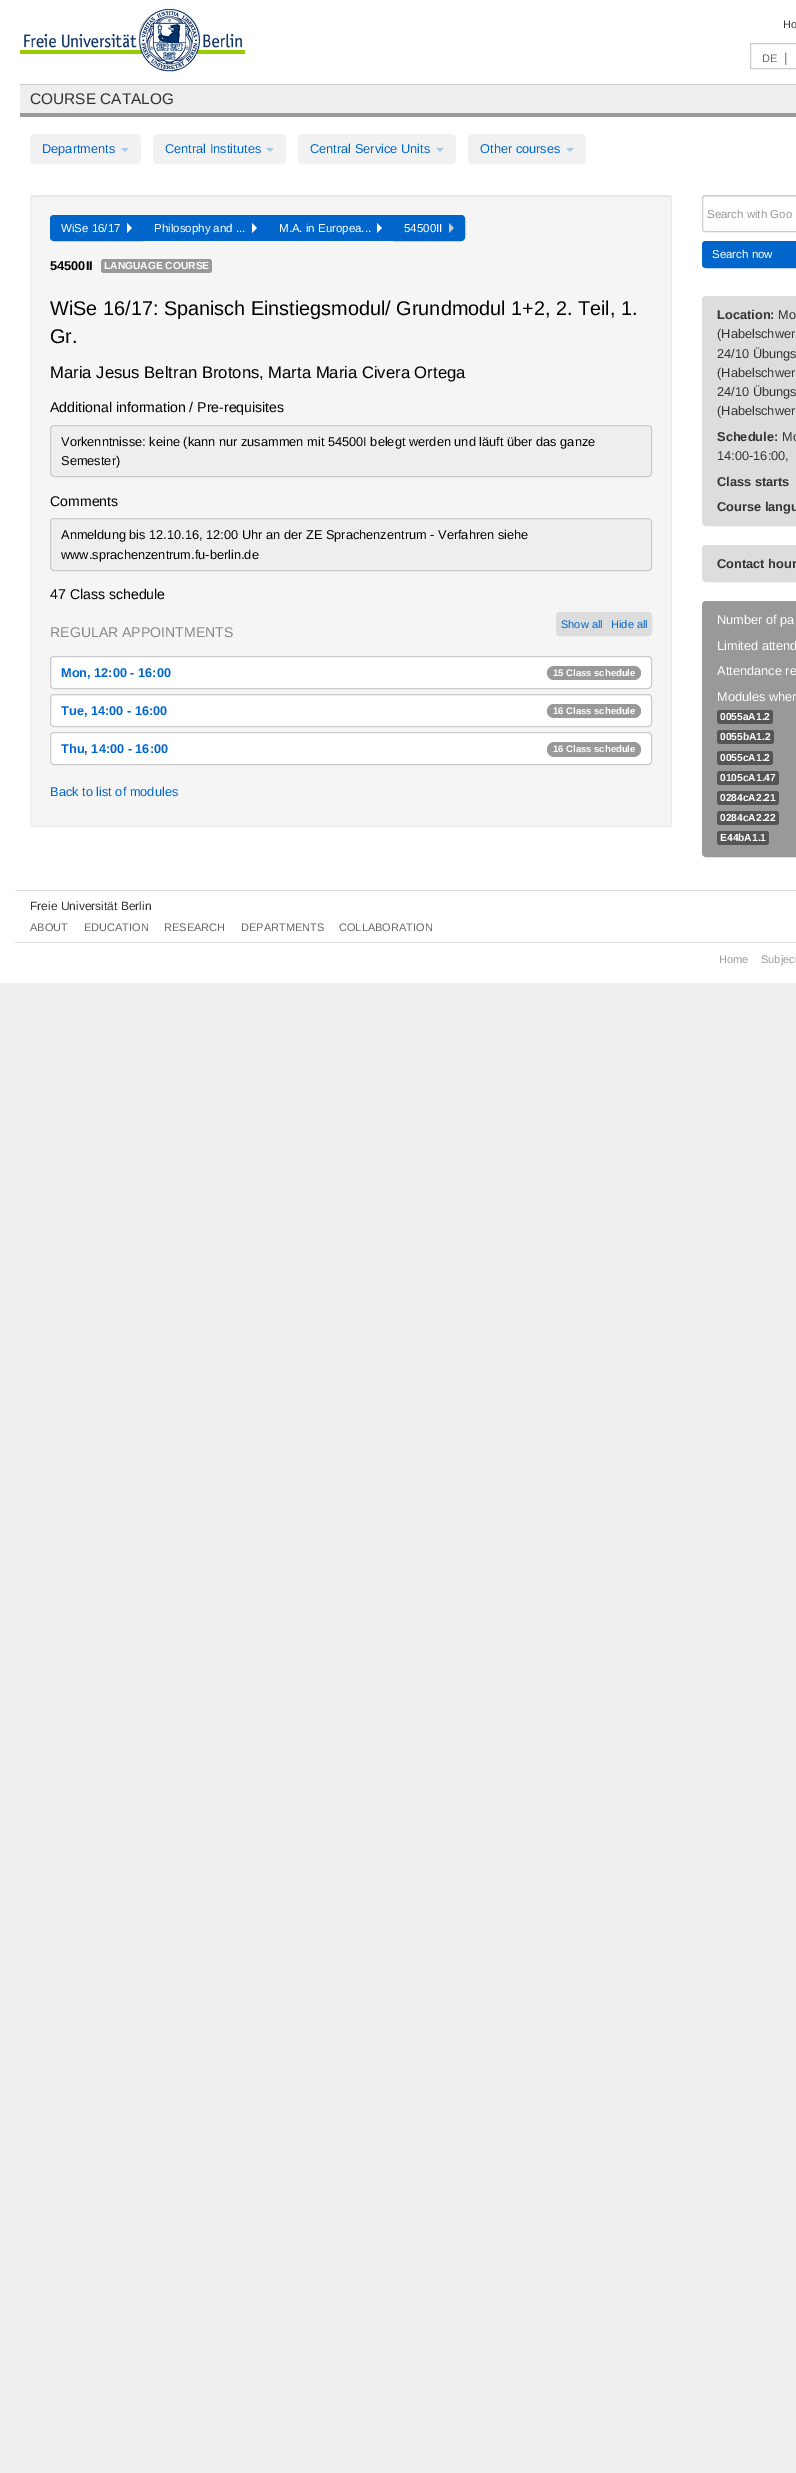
%!PS-Adobe-3.0
%%BoundingBox: 0 0 796 2473
%%LanguageLevel: 3
%%Pages: 1
%%EndComments
%%BeginProlog
/setalpha { dup .setfillconstantalpha .setstrokeconstantalpha } def
/rrect { 5 dict begin { /r /h /w /y /x } { exch def } forall
  x r add y moveto x w add y 2 copy h add r arct x w add y h add x 1 index r arct
  x y h add x y r arct x y 2 copy exch w add exch r arct closepath end } def
/drawimage { 5 dict begin { /h /w /y /x /name } { exch def } forall
  gsave x y translate w h scale
  w h 8 [w 0 0 h 0 0] name (r) file false 3 colorimage grestore end } def
%%EndProlog
%%BeginSetup
<< /PageSize [796 2473] /PageUsesTransparency true >> setpagedevice
%%EndSetup
%%Page: 1 1
0 .pushpdf14devicefilter
0 2473 translate 1 -1 scale
4 setmiterlimit
0.933 setgray
0 0 796 2473 rectfill
1 setgray
0 0 796 983 rectfill
(images/1.raw) 20 9 225 63 drawimage
0.8 setgray
750.5 43.5 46 25 rectstroke
0.933 setgray
20 85 776 28 rectfill
0.8 setgray
20 84 776 1 rectfill
0.6 setgray
20 113 776 4 rectfill
0.945 setgray
30 134 111 30 5 rrect fill
0.663 0.78 0.902 setrgbcolor
newpath 121 148 moveto 129 148 lineto 125 152 lineto closepath fill
0.945 setgray
153 134 133 30 5 rrect fill
0.663 0.78 0.902 setrgbcolor
newpath 266 148 moveto 274 148 lineto 270 152 lineto closepath fill
0.945 setgray
298 134 158 30 5 rrect fill
0.663 0.78 0.902 setrgbcolor
newpath 436 148 moveto 444 148 lineto 440 152 lineto closepath fill
0.945 setgray
468 134 118 30 5 rrect fill
0.663 0.78 0.902 setrgbcolor
newpath 566 148 moveto 574 148 lineto 570 152 lineto closepath fill
0.961 setgray
30 195 642 632 4 rrect fill
0.914 setgray
newpath 34 197 moveto 668 197 lineto 670 197 671 198 671 200 curveto 671 199 lineto 671 197 670 196 668 196 curveto 34 196 lineto 32 196 31 197 31 199 curveto 31 200 lineto 31 198 32 197 34 197 curveto closepath fill
0.05 setalpha
0 setgray
30.5 195.5 641 631 rectstroke
1 setalpha
0 0.4 0.8 setrgbcolor
newpath 54 215.5 moveto 142.5 215.5 lineto 142.5 240.5 lineto 54 240.5 lineto 52 240.5 50.5 239 50.5 237 curveto 50.5 219 lineto 50.5 217 52 215.5 54 215.5 curveto closepath gsave fill grestore
stroke
1 setgray
newpath 127 233 moveto 127 223 lineto 132 228 lineto closepath fill
0 0.4 0.8 setrgbcolor
143 215 250 26 rectfill
1 setgray
newpath 252 233 moveto 252 223 lineto 257 228 lineto closepath fill
newpath 377 233 moveto 377 223 lineto 382 228 lineto closepath fill
0 0.4 0.8 setrgbcolor
newpath 393.5 215.5 moveto 461 215.5 lineto 463 215.5 464.5 217 464.5 219 curveto 464.5 237 lineto 464.5 239 463 240.5 461 240.5 curveto 393.5 240.5 lineto closepath gsave fill grestore
stroke
0.8 setgray
newpath 449 233 moveto 449 223 lineto 454 228 lineto closepath fill
0.6 setgray
101 259 111 14 3 rrect fill
0.933 setgray
50.5 425.5 601 51 3.5 rrect gsave fill grestore
0.8 setgray
stroke
0.933 setgray
50.5 518.5 601 52 3.5 rrect gsave fill grestore
0.8 setgray
stroke
0.867 setgray
newpath 560 612.5 moveto 606.5 612.5 lineto 606.5 635.5 lineto 560 635.5 lineto 558 635.5 556.5 634 556.5 632 curveto 556.5 616 lineto 556.5 614 558 612.5 560 612.5 curveto closepath gsave fill grestore
stroke
newpath 606.5 612.5 moveto 648 612.5 lineto 650 612.5 651.5 614 651.5 616 curveto 651.5 632 lineto 651.5 634 650 635.5 648 635.5 curveto 606.5 635.5 lineto closepath gsave fill grestore
stroke
1 setgray
50.5 656.5 601 32 3.5 rrect gsave fill grestore
0.8 setgray
stroke
0.6 setgray
547 666 94 14 7 rrect fill
1 setgray
50.5 694.5 601 32 3.5 rrect gsave fill grestore
0.8 setgray
stroke
0.6 setgray
547 704 94 14 7 rrect fill
1 setgray
50.5 732.5 601 32 3.5 rrect gsave fill grestore
0.8 setgray
stroke
0.6 setgray
547 742 94 15 7.5 rrect fill
0.925 setgray
newpath 705 197 moveto 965 197 lineto 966 197 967 198 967 199 curveto 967 198 lineto 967 197 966 196 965 196 curveto 705 196 lineto 704 196 703 197 703 198 curveto 703 199 lineto 703 198 704 197 705 197 curveto closepath fill
0.8 setgray
702.5 195.5 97 36 2.5 rrect stroke
0 0.4 0.8 setrgbcolor
702 241 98 27 4 rrect fill
0 0.369 0.741 setrgbcolor
newpath 706 243 moveto 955 243 lineto 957 244 lineto 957 246 lineto 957 244 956 242 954 242 curveto 706 242 lineto 704 242 703 244 703 246 curveto 703 244 704 243 706 243 curveto closepath fill
0 0.4 0.8 setrgbcolor
702.5 241.5 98 26 3.5 rrect stroke
0.867 setgray
702.5 296.5 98 229 3.5 rrect gsave fill grestore
stroke
702.5 545.5 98 36 3.5 rrect gsave fill grestore
stroke
0.6 setgray
702.5 601.5 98 255 3.5 rrect gsave fill grestore
stroke
0.333 setgray
717 710 56 14 3 rrect fill
717 730 57 14 3 rrect fill
717 751 56 14 3 rrect fill
717 771 62 14 3 rrect fill
717 791 62 14 3 rrect fill
717 811 62 14 3 rrect fill
717 831 52 14 3 rrect fill
0.867 setgray
15 890 781 1 rectfill
15 942 781 1 rectfill
/LiberationSans-Regular [11 0 0 -11 0 0] selectfont
0.2 setgray
783 28 moveto (Ho) show
0.4 setgray
762 62 moveto (DE) show
/LiberationSans-Regular [12.8 0 0 -12.8 0 0] selectfont
784 62 moveto (|) show
/LiberationSans-Regular [15.4 0 0 -15.4 0 0] selectfont
0.2 setgray
30 104 moveto (COURSE CATALOG) show
/LiberationSans-Regular [12.8 0 0 -12.8 0 0] selectfont
0 0.4 0.8 setrgbcolor
42 153 moveto (Departments) show
165 153 moveto (Central Institutes) show
310 153 moveto (Central Service Units) show
480 153 moveto (Other courses) show
/LiberationSans-Regular [11.5 0 0 -11.5 0 0] selectfont
1 setgray
61 232 moveto (WiSe 16/17) show
154 232 moveto (Philosophy and ...) show
279 232 moveto (M.A. in Europea...) show
404 232 moveto (54500II) show
/LiberationSans-Bold [12.8 0 0 -12.8 0 0] selectfont
0 setgray
50 270 moveto (54500II) show
/LiberationSans-Bold [10.25 0 0 -10.25 0 0] selectfont
1 setgray
104 269 moveto (LANGUAGE COURSE) show
/LiberationSans-Regular [19.85 0 0 -19.85 0 0] selectfont
0 setgray
50 315 moveto (WiSe 16/17: Spanisch Einstiegsmodul/ Grundmodul 1+2, 2. Teil, 1.) show
50 343 moveto (Gr.) show
/LiberationSans-Regular [16.65 0 0 -16.65 0 0] selectfont
50 378 moveto (Maria Jesus Beltran Brotons, Marta Maria Civera Ortega) show
/LiberationSans-Regular [14.1 0 0 -14.1 0 0] selectfont
50 412 moveto (Additional information / Pre-requisites) show
/LiberationSans-Regular [12.8 0 0 -12.8 0 0] selectfont
61 446 moveto (Vorkenntnisse: keine \(kann nur zusammen mit 54500I belegt werden und läuft über das ganze) show
61 465 moveto (Semester\)) show
/LiberationSans-Regular [14.1 0 0 -14.1 0 0] selectfont
50 506 moveto (Comments) show
/LiberationSans-Regular [12.8 0 0 -12.8 0 0] selectfont
61 539 moveto (Anmeldung bis 12.10.16, 12:00 Uhr an der ZE Sprachenzentrum - Verfahren siehe) show
61 559 moveto (www.sprachenzentrum.fu-berlin.de) show
/LiberationSans-Regular [14.1 0 0 -14.1 0 0] selectfont
50 599 moveto (47 Class schedule) show
/LiberationSans-Regular [11 0 0 -11 0 0] selectfont
0 0.4 0.8 setrgbcolor
561 628 moveto (Show all) show
611 628 moveto (Hide all) show
/LiberationSans-Regular [14.1 0 0 -14.1 0 0] selectfont
0.533 setgray
50 637 moveto (REGULAR APPOINTMENTS) show
/LiberationSans-Bold [12.75 0 0 -12.75 0 0] selectfont
0 0.4 0.8 setrgbcolor
61 677 moveto (Mon, 12:00 - 16:00) show
/LiberationSans-Bold [9.5 0 0 -9.5 0 0] selectfont
1 setgray
553 676 moveto (15 Class schedule) show
/LiberationSans-Bold [12.75 0 0 -12.75 0 0] selectfont
0 0.4 0.8 setrgbcolor
61 715 moveto (Tue, 14:00 - 16:00) show
/LiberationSans-Bold [9.5 0 0 -9.5 0 0] selectfont
1 setgray
553 714 moveto (16 Class schedule) show
/LiberationSans-Bold [12.75 0 0 -12.75 0 0] selectfont
0 0.4 0.8 setrgbcolor
61 753 moveto (Thu, 14:00 - 16:00) show
/LiberationSans-Bold [9.5 0 0 -9.5 0 0] selectfont
1 setgray
553 752 moveto (16 Class schedule) show
/LiberationSans-Regular [12.8 0 0 -12.8 0 0] selectfont
0 0.4 0.8 setrgbcolor
50 796 moveto (Back to list of modules) show
/LiberationSans-Regular [11.5 0 0 -11.5 0 0] selectfont
0.6 setgray
707 218 moveto (Search with Goo) show
1 setgray
712 258 moveto (Search now) show
/LiberationSans-Bold [12.8 0 0 -12.8 0 0] selectfont
0.2 setgray
717 319 moveto (Location:) show
/LiberationSans-Regular [12.8 0 0 -12.8 0 0] selectfont
778 319 moveto (Mo) show
717 338 moveto (\(Habelschwer) show
717 358 moveto (24/10 Übungs) show
717 377 moveto (\(Habelschwer) show
717 396 moveto (24/10 Übungs) show
717 415 moveto (\(Habelschwer) show
/LiberationSans-Bold [12.8 0 0 -12.8 0 0] selectfont
717 441 moveto (Schedule:) show
/LiberationSans-Regular [12.8 0 0 -12.8 0 0] selectfont
782 441 moveto (Mo) show
717 460 moveto (14:00-16:00,) show
/LiberationSans-Bold [12.8 0 0 -12.8 0 0] selectfont
717 486 moveto (Class starts) show
717 511 moveto (Course langu) show
717 568 moveto (Contact hour) show
/LiberationSans-Regular [12.8 0 0 -12.8 0 0] selectfont
1 setgray
717 624 moveto (Number of pa) show
717 650 moveto (Limited attend) show
717 675 moveto (Attendance re) show
717 701 moveto (Modules wher) show
/LiberationSans-Bold [10.25 0 0 -10.25 0 0] selectfont
720 720 moveto (0055aA1.2) show
720 740 moveto (0055bA1.2) show
720 761 moveto (0055cA1.2) show
720 781 moveto (0105cA1.47) show
720 801 moveto (0284cA2.21) show
720 821 moveto (0284cA2.22) show
720 841 moveto (E44bA1.1) show
/LiberationSans-Regular [12 0 0 -12 0 0] selectfont
0.2 setgray
30 910 moveto (Freie Universität Berlin) show
/LiberationSans-Regular [11 0 0 -11 0 0] selectfont
0.4 setgray
30 931 moveto (ABOUT) show
84 931 moveto (EDUCATION) show
164 931 moveto (RESEARCH) show
241 931 moveto (DEPARTMENTS) show
339 931 moveto (COLLABORATION) show
0.6 setgray
719 963 moveto (Home) show
761 963 moveto (Subject) show
.poppdf14devicefilter showpage
%%EOF
